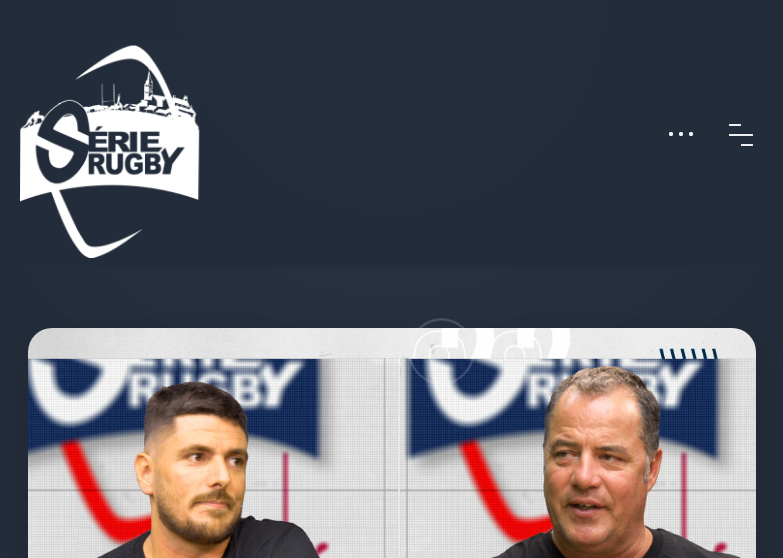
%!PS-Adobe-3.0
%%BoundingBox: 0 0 783 558
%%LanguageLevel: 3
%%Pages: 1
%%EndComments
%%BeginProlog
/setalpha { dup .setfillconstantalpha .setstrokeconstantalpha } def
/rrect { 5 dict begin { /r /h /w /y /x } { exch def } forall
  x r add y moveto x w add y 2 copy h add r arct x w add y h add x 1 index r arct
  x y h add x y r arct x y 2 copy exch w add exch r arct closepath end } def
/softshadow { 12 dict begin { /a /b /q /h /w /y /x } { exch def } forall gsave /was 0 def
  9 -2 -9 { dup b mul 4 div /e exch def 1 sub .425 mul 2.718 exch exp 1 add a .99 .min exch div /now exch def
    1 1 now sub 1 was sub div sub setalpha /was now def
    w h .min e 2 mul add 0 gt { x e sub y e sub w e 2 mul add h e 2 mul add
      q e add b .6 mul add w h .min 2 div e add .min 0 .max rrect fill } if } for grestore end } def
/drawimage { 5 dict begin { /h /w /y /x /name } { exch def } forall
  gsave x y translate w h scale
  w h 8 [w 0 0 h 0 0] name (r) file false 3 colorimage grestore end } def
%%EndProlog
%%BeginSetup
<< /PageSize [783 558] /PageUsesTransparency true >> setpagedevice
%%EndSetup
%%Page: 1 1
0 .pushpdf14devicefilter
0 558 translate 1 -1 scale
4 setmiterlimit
1 setgray
0 0 783 558 rectfill
gsave newpath 0 0 moveto 783 0 lineto 783 558 lineto 0 558 lineto closepath clip newpath 392 0 translate 682 682 scale
<< /ShadingType 3 /ColorSpace /DeviceRGB /Coords [0 0 0 0 0 1] /Extend [true true] /Function << /FunctionType 3 /Domain [0 1] /Functions [<< /FunctionType 2 /Domain [0 1] /C0 [0.173 0.212 0.29] /C1 [0.137 0.173 0.227] /N 1 >> << /FunctionType 2 /Domain [0 1] /C0 [0.137 0.173 0.227] /C1 [0.137 0.173 0.227] /N 1 >>] /Bounds [0.75] /Encode [0 1 0 1] >> >> shfill grestore
0.9 setalpha
0.137 0.173 0.227 setrgbcolor
0 0 783 268 rectfill
1 setalpha
(images/1.raw) 20 45 180 213 drawimage
0.929 0.937 0.949 setrgbcolor
newpath 681 134 2 0 360 arc closepath fill
newpath 671 134 2 0 360 arc closepath fill
newpath 691 134 2 0 360 arc closepath fill
729 124 12 2 1 rrect fill
729 134 24 2 1 rrect fill
741 144 12 2 1 rrect fill
0.067 0.067 0.075 setrgbcolor
32 336 728 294 24 16 0.25 softshadow
(images/2.raw) 28 328 728 230 drawimage
(images/3.raw) 409 318 65 66 drawimage
.poppdf14devicefilter showpage
%%EOF
